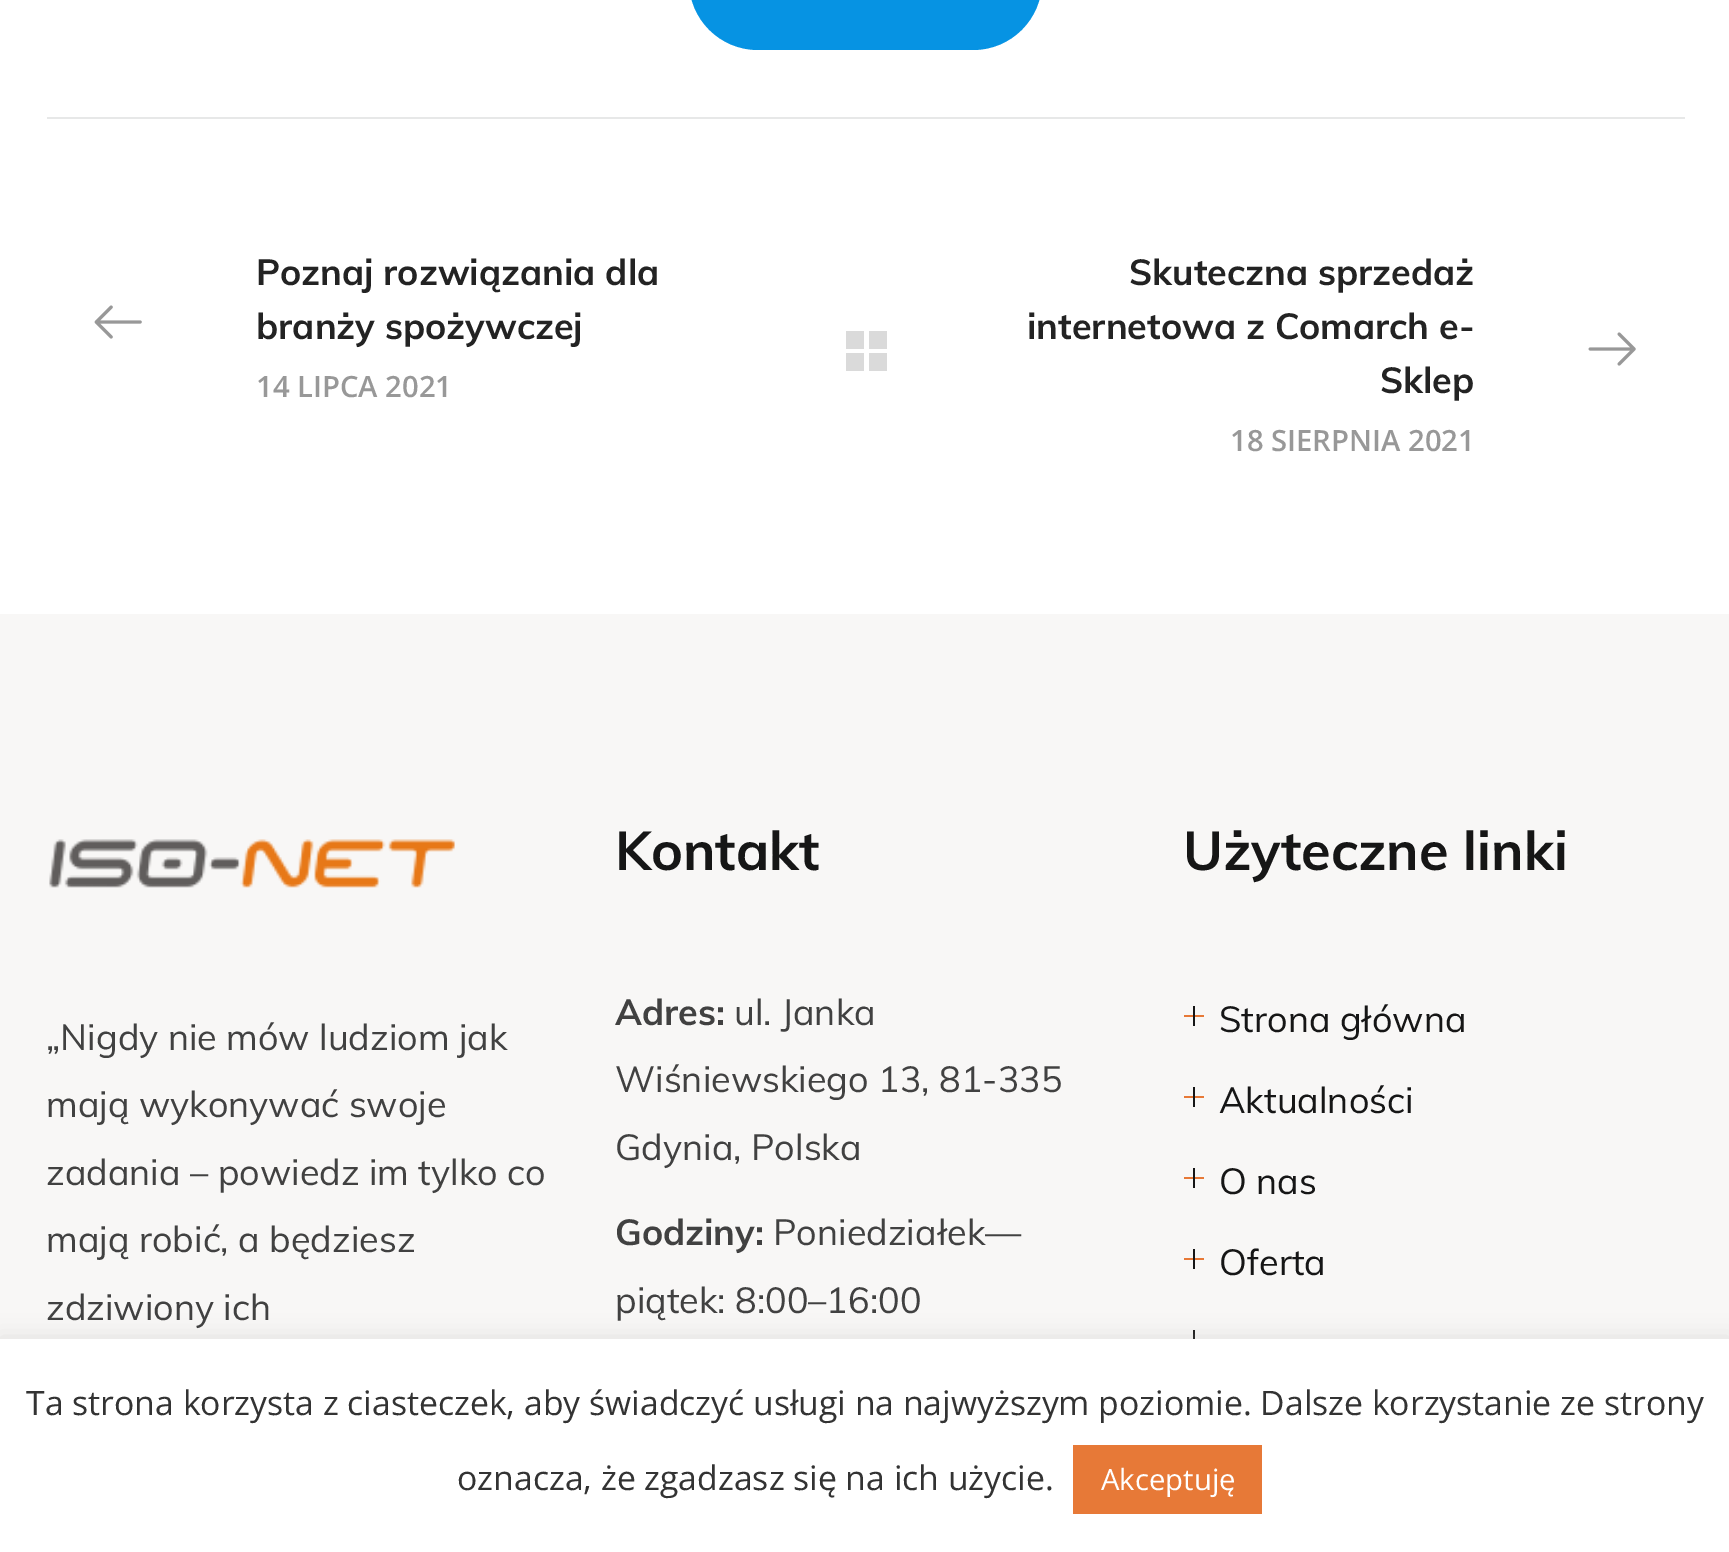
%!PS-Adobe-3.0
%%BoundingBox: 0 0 1729 1552
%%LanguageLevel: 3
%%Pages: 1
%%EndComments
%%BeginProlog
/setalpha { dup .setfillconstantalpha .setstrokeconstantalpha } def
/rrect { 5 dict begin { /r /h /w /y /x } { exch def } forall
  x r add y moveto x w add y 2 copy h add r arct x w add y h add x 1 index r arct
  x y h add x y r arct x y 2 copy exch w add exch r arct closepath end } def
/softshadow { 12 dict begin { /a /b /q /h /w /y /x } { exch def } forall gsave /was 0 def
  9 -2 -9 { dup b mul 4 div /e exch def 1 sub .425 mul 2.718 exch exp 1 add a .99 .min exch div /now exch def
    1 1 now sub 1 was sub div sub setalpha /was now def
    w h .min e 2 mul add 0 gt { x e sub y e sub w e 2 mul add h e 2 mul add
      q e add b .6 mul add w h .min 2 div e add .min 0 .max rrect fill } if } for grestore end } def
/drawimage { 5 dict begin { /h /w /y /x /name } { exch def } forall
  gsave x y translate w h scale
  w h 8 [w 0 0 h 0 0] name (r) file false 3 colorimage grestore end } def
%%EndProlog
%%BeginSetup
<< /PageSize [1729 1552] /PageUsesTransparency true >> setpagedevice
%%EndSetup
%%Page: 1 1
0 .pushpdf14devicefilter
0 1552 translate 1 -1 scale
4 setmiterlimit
1 setgray
0 0 1729 1552 rectfill
0.024 0.576 0.89 setrgbcolor
689 -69 353 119 69 rrect fill
0.906 0.91 0.91 setrgbcolor
47 117 1638 2 rectfill
(images/1.raw) 94 305 48 34 drawimage
0.855 setgray
846 331 18 18 rectfill
869 331 18 18 rectfill
846 353 18 18 rectfill
869 353 18 18 rectfill
(images/2.raw) 1588 332 48 34 drawimage
0.973 0.969 0.965 setrgbcolor
0 614 1729 725 rectfill
(images/3.raw) 49 839 406 49 drawimage
0.906 0.475 0.216 setrgbcolor
1184 1015 20 2 rectfill
0.086 setgray
1193 1006 2 20 rectfill
0.906 0.475 0.216 setrgbcolor
1184 1096 20 2 rectfill
0.086 setgray
1193 1087 2 20 rectfill
0.906 0.475 0.216 setrgbcolor
1184 1177 20 2 rectfill
0.086 setgray
1193 1168 2 20 rectfill
0.906 0.475 0.216 setrgbcolor
1184 1258 20 2 rectfill
0.086 setgray
1193 1249 2 20 rectfill
1193 1330 2 9 rectfill
0.675 0.671 0.671 setrgbcolor
0 1337 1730 213 0 11 0.3 softshadow
1 setgray
0 1339 1729 213 rectfill
0.906 0.475 0.216 setrgbcolor
1073 1445 189 69 rectfill
/Muli-Bold [36 0 0 -36 0 0] selectfont
0.137 setgray
256 285 moveto (Poznaj rozwiązania dla) show
256 339 moveto (branży spożywczej) show
/OpenSans-SemiBold [29.25 0 0 -29.25 0 0] selectfont
0.596 setgray
256 397 moveto (14 LIPCA 2021) show
/Muli-Bold [36 0 0 -36 0 0] selectfont
0.137 setgray
1129 285 moveto (Skuteczna sprzedaż) show
1027 339 moveto (internetowa z Comarch e-) show
1380 393 moveto (Sklep) show
/OpenSans-SemiBold [29.25 0 0 -29.25 0 0] selectfont
0.596 setgray
1230 451 moveto (18 SIERPNIA 2021) show
/Muli-Regular [36 0 0 -36 0 0] selectfont
0.255 setgray
46 1050 moveto („Nigdy nie mów ludziom jak) show
46 1117 moveto (mają wykonywać swoje) show
46 1185 moveto (zadania – powiedz im tylko co) show
46 1252 moveto (mają robić, a będziesz) show
46 1320 moveto (zdziwiony ich) show
/Muli-Bold [54 0 0 -54 0 0] selectfont
0.086 setgray
615 870 moveto (Kontakt) show
/Muli-Bold [36 0 0 -36 0 0] selectfont
0.255 setgray
615 1025 moveto (Adres:) show
/Muli-Regular [36 0 0 -36 0 0] selectfont
734 1025 moveto (ul. Janka) show
615 1092 moveto (Wiśniewskiego 13, 81-335) show
615 1160 moveto (Gdynia, Polska) show
/Muli-Bold [36 0 0 -36 0 0] selectfont
615 1245 moveto (Godziny:) show
/Muli-Regular [36 0 0 -36 0 0] selectfont
773 1245 moveto (Poniedziałek—) show
615 1313 moveto (piątek: 8:00–16:00) show
/Muli-Bold [54 0 0 -54 0 0] selectfont
0.086 setgray
1183 870 moveto (Użyteczne linki) show
/Muli-Regular [36 0 0 -36 0 0] selectfont
1219 1032 moveto (Strona główna) show
1219 1113 moveto (Aktualności) show
1219 1194 moveto (O nas) show
1219 1275 moveto (Oferta) show
/OpenSans-Regular [33.75 0 0 -33.75 0 0] selectfont
0.2 setgray
26 1415 moveto (Ta strona korzysta z ciasteczek, aby świadczyć usługi na najwyższym poziomie. Dalsze korzystanie ze strony) show
457 1490 moveto (oznacza, że zgadzasz się na ich użycie.) show
/OpenSans-Regular [29.25 0 0 -29.25 0 0] selectfont
1 setgray
1101 1490 moveto (Akceptuję) show
.poppdf14devicefilter showpage
%%EOF
